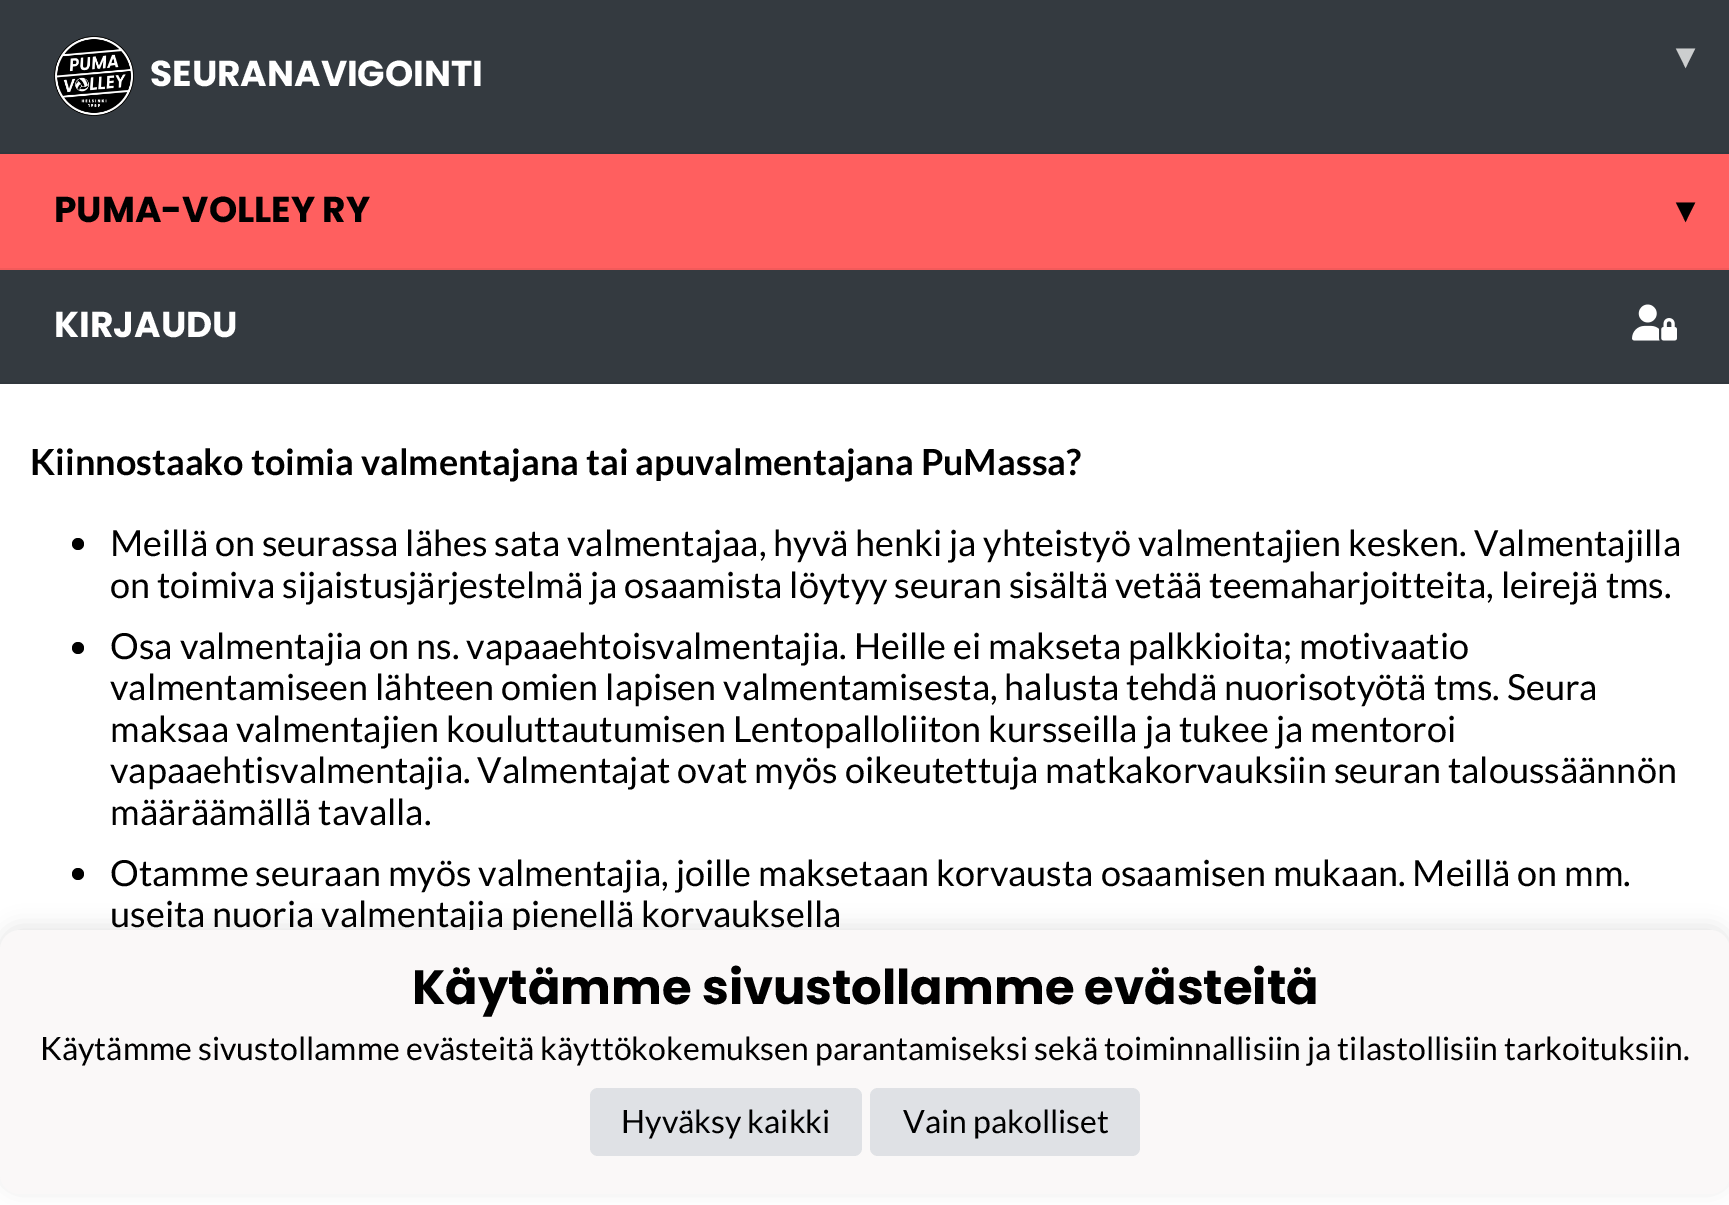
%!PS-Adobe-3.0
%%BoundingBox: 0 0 1729 1205
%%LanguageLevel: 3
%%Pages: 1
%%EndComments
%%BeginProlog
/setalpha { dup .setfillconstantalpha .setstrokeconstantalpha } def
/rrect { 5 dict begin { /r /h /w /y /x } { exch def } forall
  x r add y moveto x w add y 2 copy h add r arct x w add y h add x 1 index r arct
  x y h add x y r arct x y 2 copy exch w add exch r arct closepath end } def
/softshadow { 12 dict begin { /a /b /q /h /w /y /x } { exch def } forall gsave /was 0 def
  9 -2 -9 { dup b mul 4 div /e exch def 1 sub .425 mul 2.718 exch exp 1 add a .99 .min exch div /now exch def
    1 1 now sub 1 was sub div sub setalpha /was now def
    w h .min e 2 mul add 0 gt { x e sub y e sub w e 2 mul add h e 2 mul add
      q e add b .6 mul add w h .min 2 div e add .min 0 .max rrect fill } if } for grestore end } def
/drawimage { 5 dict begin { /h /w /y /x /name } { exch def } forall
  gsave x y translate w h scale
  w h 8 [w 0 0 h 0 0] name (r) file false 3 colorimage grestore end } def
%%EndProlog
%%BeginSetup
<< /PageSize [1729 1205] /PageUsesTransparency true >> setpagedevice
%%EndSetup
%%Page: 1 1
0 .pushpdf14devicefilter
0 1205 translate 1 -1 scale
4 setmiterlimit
1 setgray
0 0 1729 1205 rectfill
0.204 0.227 0.251 setrgbcolor
0 0 1729 152 rectfill
0.192 0.216 0.239 setrgbcolor
0 152 1729 2 rectfill
(images/1.raw) 54 36 80 80 drawimage
1 0.373 0.373 setrgbcolor
0 154 1729 114 rectfill
0.949 0.353 0.353 setrgbcolor
0 268 1729 2 rectfill
0.204 0.227 0.251 setrgbcolor
0 270 1729 112 rectfill
0.192 0.216 0.239 setrgbcolor
0 382 1729 2 rectfill
(images/2.raw) 1632 304 45 37 drawimage
0 setgray
newpath 78 544 6 0 360 arc closepath fill
newpath 78 648 6 0 360 arc closepath fill
newpath 78 874 6 0 360 arc closepath fill
0 926 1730 264 20 10 0.1 softshadow
/Poppins-Bold [36 0 0 -36 0 0] selectfont
1 setgray
150 86 moveto (SEURANAVIGOINTI) show
/DejaVuSans-Bold [36 0 0 -36 0 0] selectfont
0.8 0.808 0.812 setrgbcolor
1676 68 moveto (▾) show
/Poppins-Bold [36 0 0 -36 0 0] selectfont
0 setgray
54 222 moveto (PUMA-VOLLEY RY) show
/DejaVuSans-Bold [36 0 0 -36 0 0] selectfont
1676 222 moveto (▾) show
/Poppins-Bold [36 0 0 -36 0 0] selectfont
1 setgray
54 337 moveto (KIRJAUDU) show
/Lato-Bold [36 0 0 -36 0 0] selectfont
0 setgray
30 475 moveto (Kiinnostaako toimia valmentajana tai apuvalmentajana PuMassa?) show
/Lato-Regular [36 0 0 -36 0 0] selectfont
110 556 moveto (Meillä on seurassa lähes sata valmentajaa, hyvä henki ja yhteistyö valmentajien kesken. Valmentajilla) show
110 598 moveto (on toimiva sijaistusjärjestelmä ja osaamista löytyy seuran sisältä vetää teemaharjoitteita, leirejä tms.) show
110 659 moveto (Osa valmentajia on ns. vapaaehtoisvalmentajia. Heille ei makseta palkkioita; motivaatio) show
110 700 moveto (valmentamiseen lähteen omien lapisen valmentamisesta, halusta tehdä nuorisotyötä tms. Seura) show
110 742 moveto (maksaa valmentajien kouluttautumisen Lentopalloliiton kursseilla ja tukee ja mentoroi) show
110 783 moveto (vapaaehtisvalmentajia. Valmentajat ovat myös oikeutettuja matkakorvauksiin seuran taloussäännön) show
110 825 moveto (määräämällä tavalla.) show
110 886 moveto (Otamme seuraan myös valmentajia, joille maksetaan korvausta osaamisen mukaan. Meillä on mm.) show
110 927 moveto (useita nuoria valmentajia pienellä korvauksella) show
0.98 0.973 0.973 setrgbcolor
0 930 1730 264 20 rrect fill
/Poppins-Bold [48 0 0 -48 0 0] selectfont
0 setgray
412 1004 moveto (Käytämme sivustollamme evästeitä) show
/Lato-Regular [32 0 0 -32 0 0] selectfont
40 1060 moveto (Käytämme sivustollamme evästeitä käyttökokemuksen parantamiseksi sekä toiminnallisiin ja tilastollisiin tarkoituksiin.) show
0.875 0.882 0.898 setrgbcolor
590 1088 272 68 8 rrect fill
0 setgray
621 1133 moveto (Hyväksy kaikki) show
0.875 0.882 0.898 setrgbcolor
870 1088 270 68 8 rrect fill
0 setgray
903 1133 moveto (Vain pakolliset) show
.poppdf14devicefilter showpage
%%EOF
